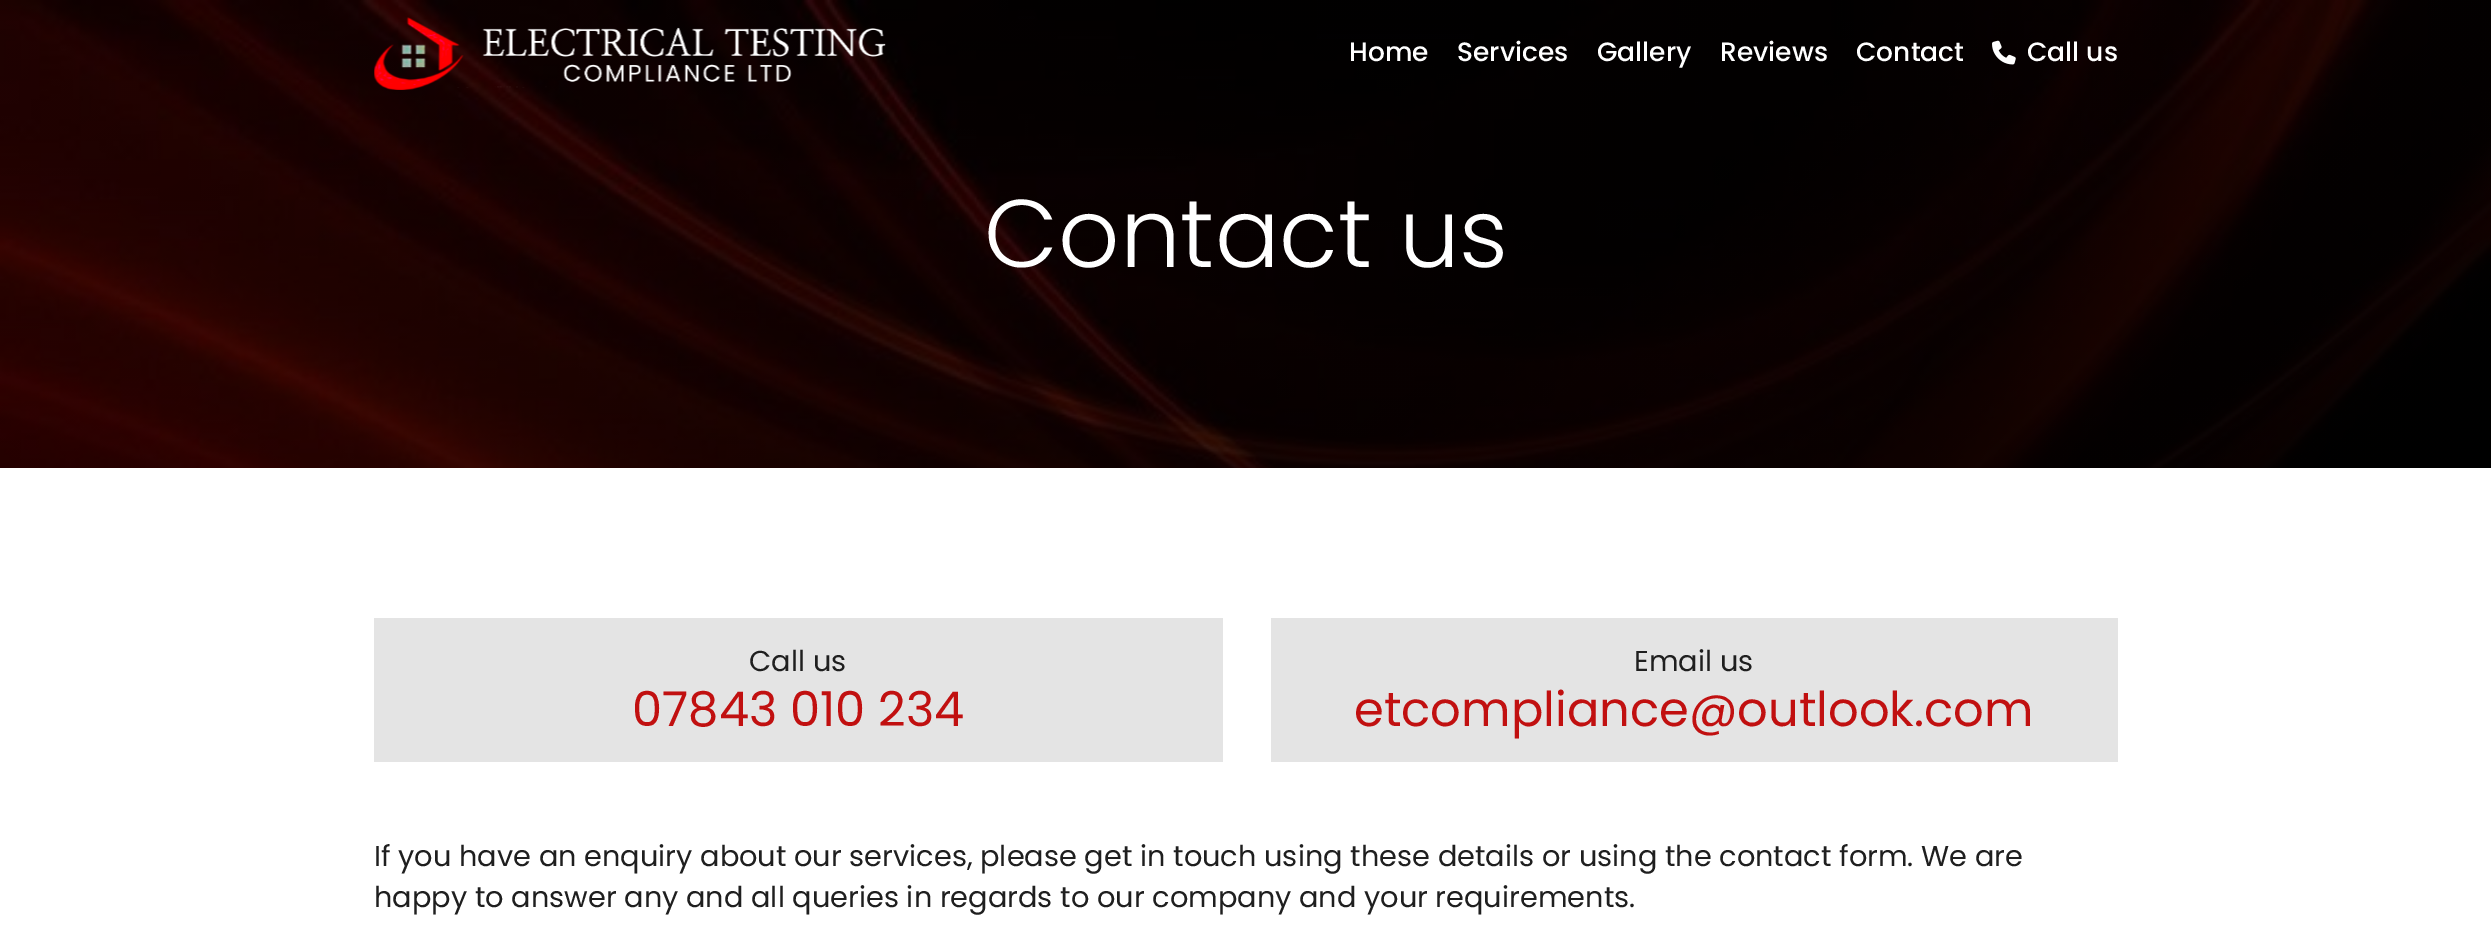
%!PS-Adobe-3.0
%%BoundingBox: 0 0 2491 934
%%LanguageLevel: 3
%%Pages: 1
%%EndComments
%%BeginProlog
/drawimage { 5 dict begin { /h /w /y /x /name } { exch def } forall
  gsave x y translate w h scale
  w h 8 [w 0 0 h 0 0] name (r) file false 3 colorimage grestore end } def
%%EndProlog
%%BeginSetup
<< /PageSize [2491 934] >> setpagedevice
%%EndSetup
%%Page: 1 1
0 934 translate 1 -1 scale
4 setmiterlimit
1 setgray
0 0 2491 934 rectfill
(images/3.raw) 0 0 2491 468 drawimage
(images/1.raw) 374 17 512 73 drawimage
(images/2.raw) 1992 40 24 25 drawimage
0.894 setgray
374 618 849 144 rectfill
1271 618 847 144 rectfill
/Poppins-Medium [26.5 0 0 -26.5 0 0] selectfont
1 setgray
1349 61 moveto (Home) show
1457 61 moveto (Services) show
1597 61 moveto (Gallery) show
1720 61 moveto (Reviews) show
1856 61 moveto (Contact) show
2027 61 moveto (Call us) show
/Poppins-Light [96 0 0 -96 0 0] selectfont
984 267 moveto (Contact us) show
/Poppins-Regular [28.8 0 0 -28.8 0 0] selectfont
0.122 setgray
749 671 moveto (Call us) show
/Poppins-Regular [48 0 0 -48 0 0] selectfont
0.757 0.063 0.063 setrgbcolor
632 726 moveto (07843 010 234) show
/Poppins-Regular [28.8 0 0 -28.8 0 0] selectfont
0.122 setgray
1634 671 moveto (Email us) show
/Poppins-Regular [48 0 0 -48 0 0] selectfont
0.757 0.063 0.063 setrgbcolor
1354 726 moveto (etcompliance@outlook.com) show
/Poppins-Regular [28.8 0 0 -28.8 0 0] selectfont
0.122 setgray
374 866 moveto (If you have an enquiry about our services, please get in touch using these details or using the contact form. We are) show
374 907 moveto (happy to answer any and all queries in regards to our company and your requirements.) show
showpage
%%EOF
